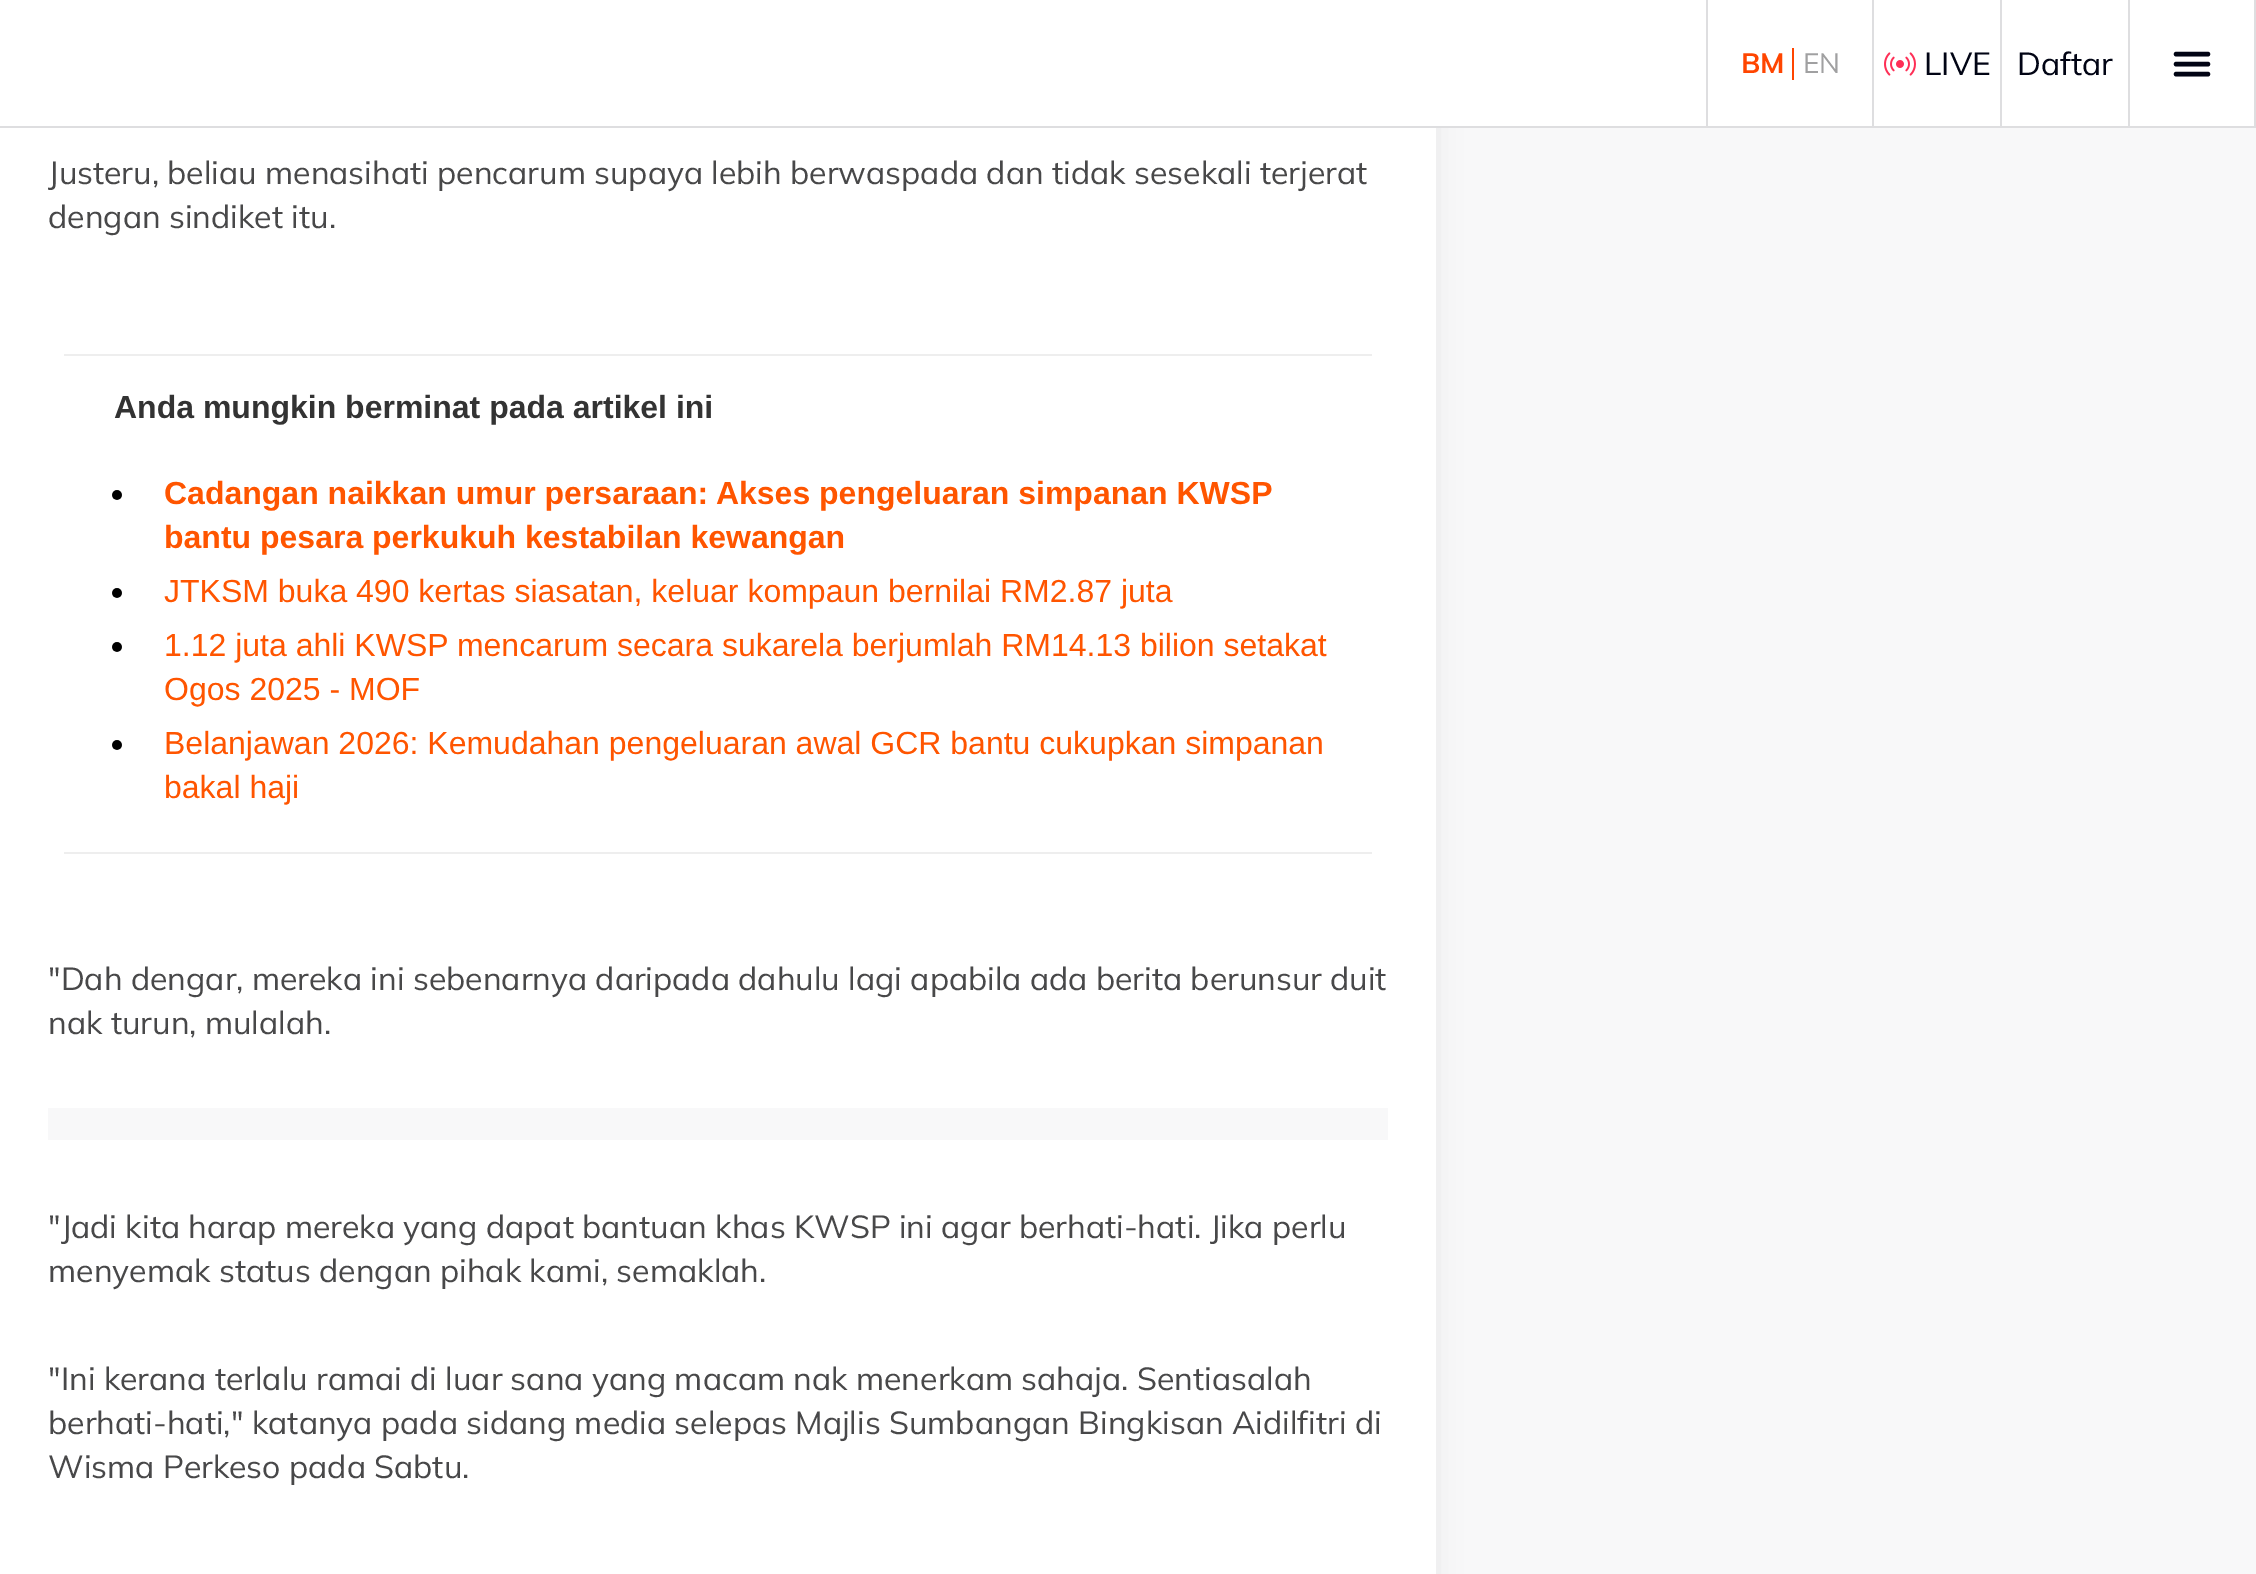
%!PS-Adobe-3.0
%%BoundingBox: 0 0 2256 1574
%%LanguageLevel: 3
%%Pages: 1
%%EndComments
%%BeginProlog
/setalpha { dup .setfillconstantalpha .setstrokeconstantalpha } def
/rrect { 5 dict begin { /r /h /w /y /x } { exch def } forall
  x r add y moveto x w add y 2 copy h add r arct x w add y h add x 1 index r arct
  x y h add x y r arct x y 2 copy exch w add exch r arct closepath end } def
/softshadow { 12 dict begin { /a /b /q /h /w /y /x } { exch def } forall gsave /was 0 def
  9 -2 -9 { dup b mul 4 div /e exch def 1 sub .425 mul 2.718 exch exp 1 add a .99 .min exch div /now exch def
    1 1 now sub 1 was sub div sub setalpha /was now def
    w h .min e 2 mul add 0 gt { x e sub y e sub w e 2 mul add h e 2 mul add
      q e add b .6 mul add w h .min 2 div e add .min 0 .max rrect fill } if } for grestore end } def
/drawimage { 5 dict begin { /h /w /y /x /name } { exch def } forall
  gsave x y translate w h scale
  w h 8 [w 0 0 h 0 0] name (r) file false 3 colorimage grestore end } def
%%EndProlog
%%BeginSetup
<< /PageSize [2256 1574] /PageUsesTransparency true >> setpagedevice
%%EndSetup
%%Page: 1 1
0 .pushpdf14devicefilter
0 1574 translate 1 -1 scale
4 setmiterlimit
0.973 0.973 0.976 setrgbcolor
0 0 2256 1574 rectfill
0 setgray
6 -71 1424 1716 26 15 0.1 softshadow
1 setgray
0 0 2254 126 rectfill
0.871 0.871 0.878 setrgbcolor
0 126 2256 2 rectfill
1706 0 2 126 rectfill
1 0.271 0 setrgbcolor
1792 48 2 32 rectfill
0.871 0.871 0.878 setrgbcolor
1872 0 2 126 rectfill
(images/1.raw) 1884 52 32 24 drawimage
2000 0 2 126 rectfill
2254 0 2 126 rectfill
2128 0 2 126 rectfill
0.004 0.016 0.078 setrgbcolor
4.5 setlinewidth
1 setlinecap
newpath 2176 54 moveto 2208 54 lineto 2176 64 moveto 2208 64 lineto 2176 74 moveto 2208 74 lineto stroke
1 setgray
0 128 1436 1446 rectfill
(images/2.raw) 64 354 1308 500 drawimage
0.973 0.973 0.976 setrgbcolor
48 1108 1340 32 rectfill
/Mulish-Bold [28 0 0 -28 0 0] selectfont
1 0.271 0 setrgbcolor
1741 73 moveto (BM) show
/Mulish-Regular [28 0 0 -28 0 0] selectfont
0.627 0.627 0.631 setrgbcolor
1803 73 moveto (EN) show
/Mulish-Regular [32 0 0 -32 0 0] selectfont
0.004 0.016 0.078 setrgbcolor
1924 75 moveto (LIVE) show
2017 75 moveto (Daftar) show
0.282 0.282 0.286 setrgbcolor
48 184 moveto (Justeru, beliau menasihati pencarum supaya lebih berwaspada dan tidak sesekali terjerat) show
48 228 moveto (dengan sindiket itu.) show
48 990 moveto ("Dah dengar, mereka ini sebenarnya daripada dahulu lagi apabila ada berita berunsur duit) show
48 1034 moveto (nak turun, mulalah.) show
48 1238 moveto ("Jadi kita harap mereka yang dapat bantuan khas KWSP ini agar berhati-hati. Jika perlu) show
48 1282 moveto (menyemak status dengan pihak kami, semaklah.) show
48 1390 moveto ("Ini kerana terlalu ramai di luar sana yang macam nak menerkam sahaja. Sentiasalah) show
48 1434 moveto (berhati-hati," katanya pada sidang media selepas Majlis Sumbangan Bingkisan Aidilfitri di) show
48 1478 moveto (Wisma Perkeso pada Sabtu.) show
.poppdf14devicefilter showpage
%%EOF
